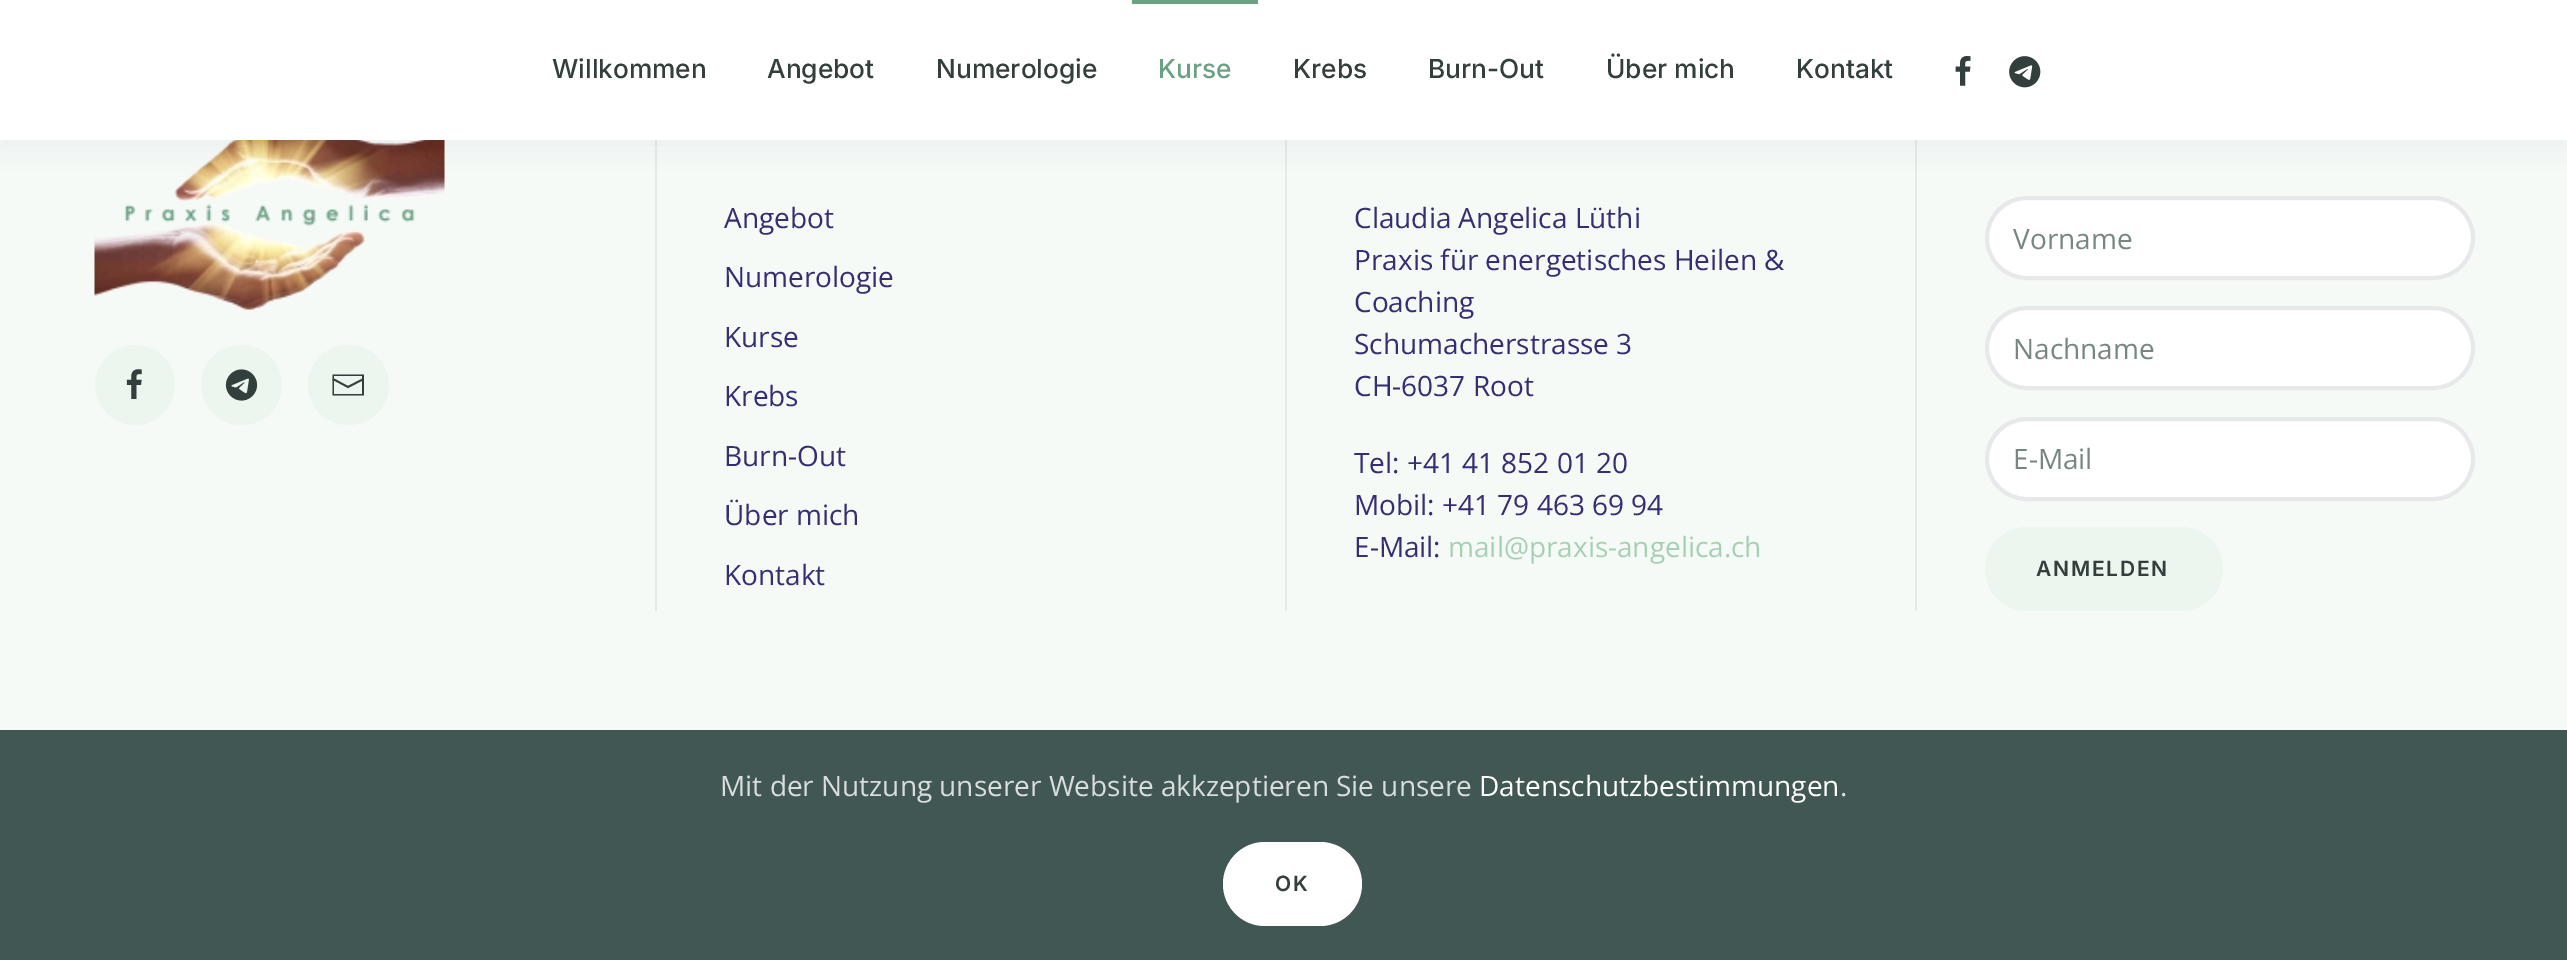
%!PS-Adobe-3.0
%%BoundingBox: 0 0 2567 960
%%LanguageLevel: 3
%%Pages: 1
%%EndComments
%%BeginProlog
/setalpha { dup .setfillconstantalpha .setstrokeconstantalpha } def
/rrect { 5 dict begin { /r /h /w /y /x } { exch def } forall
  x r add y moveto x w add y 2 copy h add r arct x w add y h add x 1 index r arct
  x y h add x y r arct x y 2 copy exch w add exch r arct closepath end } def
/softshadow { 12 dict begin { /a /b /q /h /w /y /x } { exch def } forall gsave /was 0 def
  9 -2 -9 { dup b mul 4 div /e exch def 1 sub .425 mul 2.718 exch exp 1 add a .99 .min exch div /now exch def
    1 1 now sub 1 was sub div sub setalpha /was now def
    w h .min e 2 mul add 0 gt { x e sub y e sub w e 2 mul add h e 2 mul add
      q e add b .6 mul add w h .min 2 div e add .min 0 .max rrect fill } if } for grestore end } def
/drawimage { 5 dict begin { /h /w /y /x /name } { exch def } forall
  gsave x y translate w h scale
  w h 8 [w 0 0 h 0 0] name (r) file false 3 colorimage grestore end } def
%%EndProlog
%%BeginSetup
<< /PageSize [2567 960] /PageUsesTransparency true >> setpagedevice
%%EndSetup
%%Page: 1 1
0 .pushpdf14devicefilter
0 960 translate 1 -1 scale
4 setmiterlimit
0.965 0.98 0.969 setrgbcolor
0 0 2567 960 rectfill
(images/3.raw) 94 140 351 170 drawimage
0.906 0.91 0.918 setrgbcolor
655 140 2 471 rectfill
1285 140 2 471 rectfill
1915 140 2 471 rectfill
0.153 0.173 0.247 setrgbcolor
0 9 2567 140 0 13 0.06 softshadow
1 setgray
0 0 2567 140 rectfill
0.416 0.631 0.514 setrgbcolor
1132 0 126 4 rectfill
(images/1.raw) 1955 56 16 30 drawimage
(images/2.raw) 2009 56 32 32 drawimage
0.925 0.961 0.933 setrgbcolor
newpath 135 385 40 0 360 arc closepath fill
(images/4.raw) 126 369 16 30 drawimage
201 345 81 80 40 rrect fill
(images/5.raw) 225 369 33 32 drawimage
308 345 81 80 40 rrect fill
0.2 0.247 0.235 setrgbcolor
1.8 setlinewidth
newpath 333 379 moveto 348 387 lineto 363.5 379 lineto stroke
newpath 332.5 374.5 moveto 332.5 395.5 lineto 364 395.5 lineto 364 374.5 lineto closepath 362 394 moveto 334 394 lineto 334 376 lineto 362 376 lineto closepath fill
1 setgray
1987 198 486 80 40 rrect gsave fill grestore
0.906 0.91 0.918 setrgbcolor
4 setlinewidth
stroke
1 setgray
1987 308 486 80 40 rrect gsave fill grestore
0.906 0.91 0.918 setrgbcolor
stroke
1 setgray
1987 419 486 80 40 rrect gsave fill grestore
0.906 0.91 0.918 setrgbcolor
stroke
0.925 0.961 0.933 setrgbcolor
1985 527 238 84 42 rrect fill
0.251 0.341 0.325 setrgbcolor
0 730 2567 230 rectfill
1 setgray
1223 842 139 84 42 rrect fill
/Inter-Medium [26.25 0 0 -26.25 0 0] selectfont
0.2 0.247 0.235 setrgbcolor
552 78 moveto (Willkommen) show
767 78 moveto (Angebot) show
936 78 moveto (Numerologie) show
0.416 0.631 0.514 setrgbcolor
1158 78 moveto (Kurse) show
0.2 0.247 0.235 setrgbcolor
1293 78 moveto (Krebs) show
1428 78 moveto (Burn-Out) show
1606 78 moveto (Über mich) show
1796 78 moveto (Kontakt) show
/OpenSans-Regular [28 0 0 -28 0 0] selectfont
0.204 0.18 0.447 setrgbcolor
724 228 moveto (Angebot) show
724 287 moveto (Numerologie) show
724 347 moveto (Kurse) show
724 406 moveto (Krebs) show
724 466 moveto (Burn-Out) show
724 525 moveto (Über mich) show
724 585 moveto (Kontakt) show
1354 228 moveto (Claudia Angelica Lüthi) show
1354 270 moveto (Praxis für energetisches Heilen &) show
1354 312 moveto (Coaching) show
1354 354 moveto (Schumacherstrasse 3) show
1354 396 moveto (CH-6037 Root) show
1354 473 moveto (Tel: +41 41 852 01 20) show
1354 515 moveto (Mobil: +41 79 463 69 94) show
1354 557 moveto (E-Mail:) show
0.651 0.816 0.706 setrgbcolor
1448 557 moveto (mail@praxis-angelica.ch) show
0.463 0.525 0.51 setrgbcolor
2013 249 moveto (Vorname) show
2013 359 moveto (Nachname) show
2013 469 moveto (E-Mail) show
/Inter-SemiBold [21 0 0 -21 0 0] selectfont
0.2 0.247 0.235 setrgbcolor
2036 576 moveto 1.75 0 (ANMELDEN) ashow
/OpenSans-Regular [28 0 0 -28 0 0] selectfont
0.851 0.867 0.867 setrgbcolor
720 796 moveto (Mit der Nutzung unserer Website akkzeptieren Sie unsere) show
1 setgray
1479 796 moveto (Datenschutzbestimmungen) show
0.851 0.867 0.867 setrgbcolor
1840 796 moveto (.) show
/Inter-SemiBold [21 0 0 -21 0 0] selectfont
0.2 0.247 0.235 setrgbcolor
1275 891 moveto 1.75 0 (OK) ashow
.poppdf14devicefilter showpage
%%EOF
